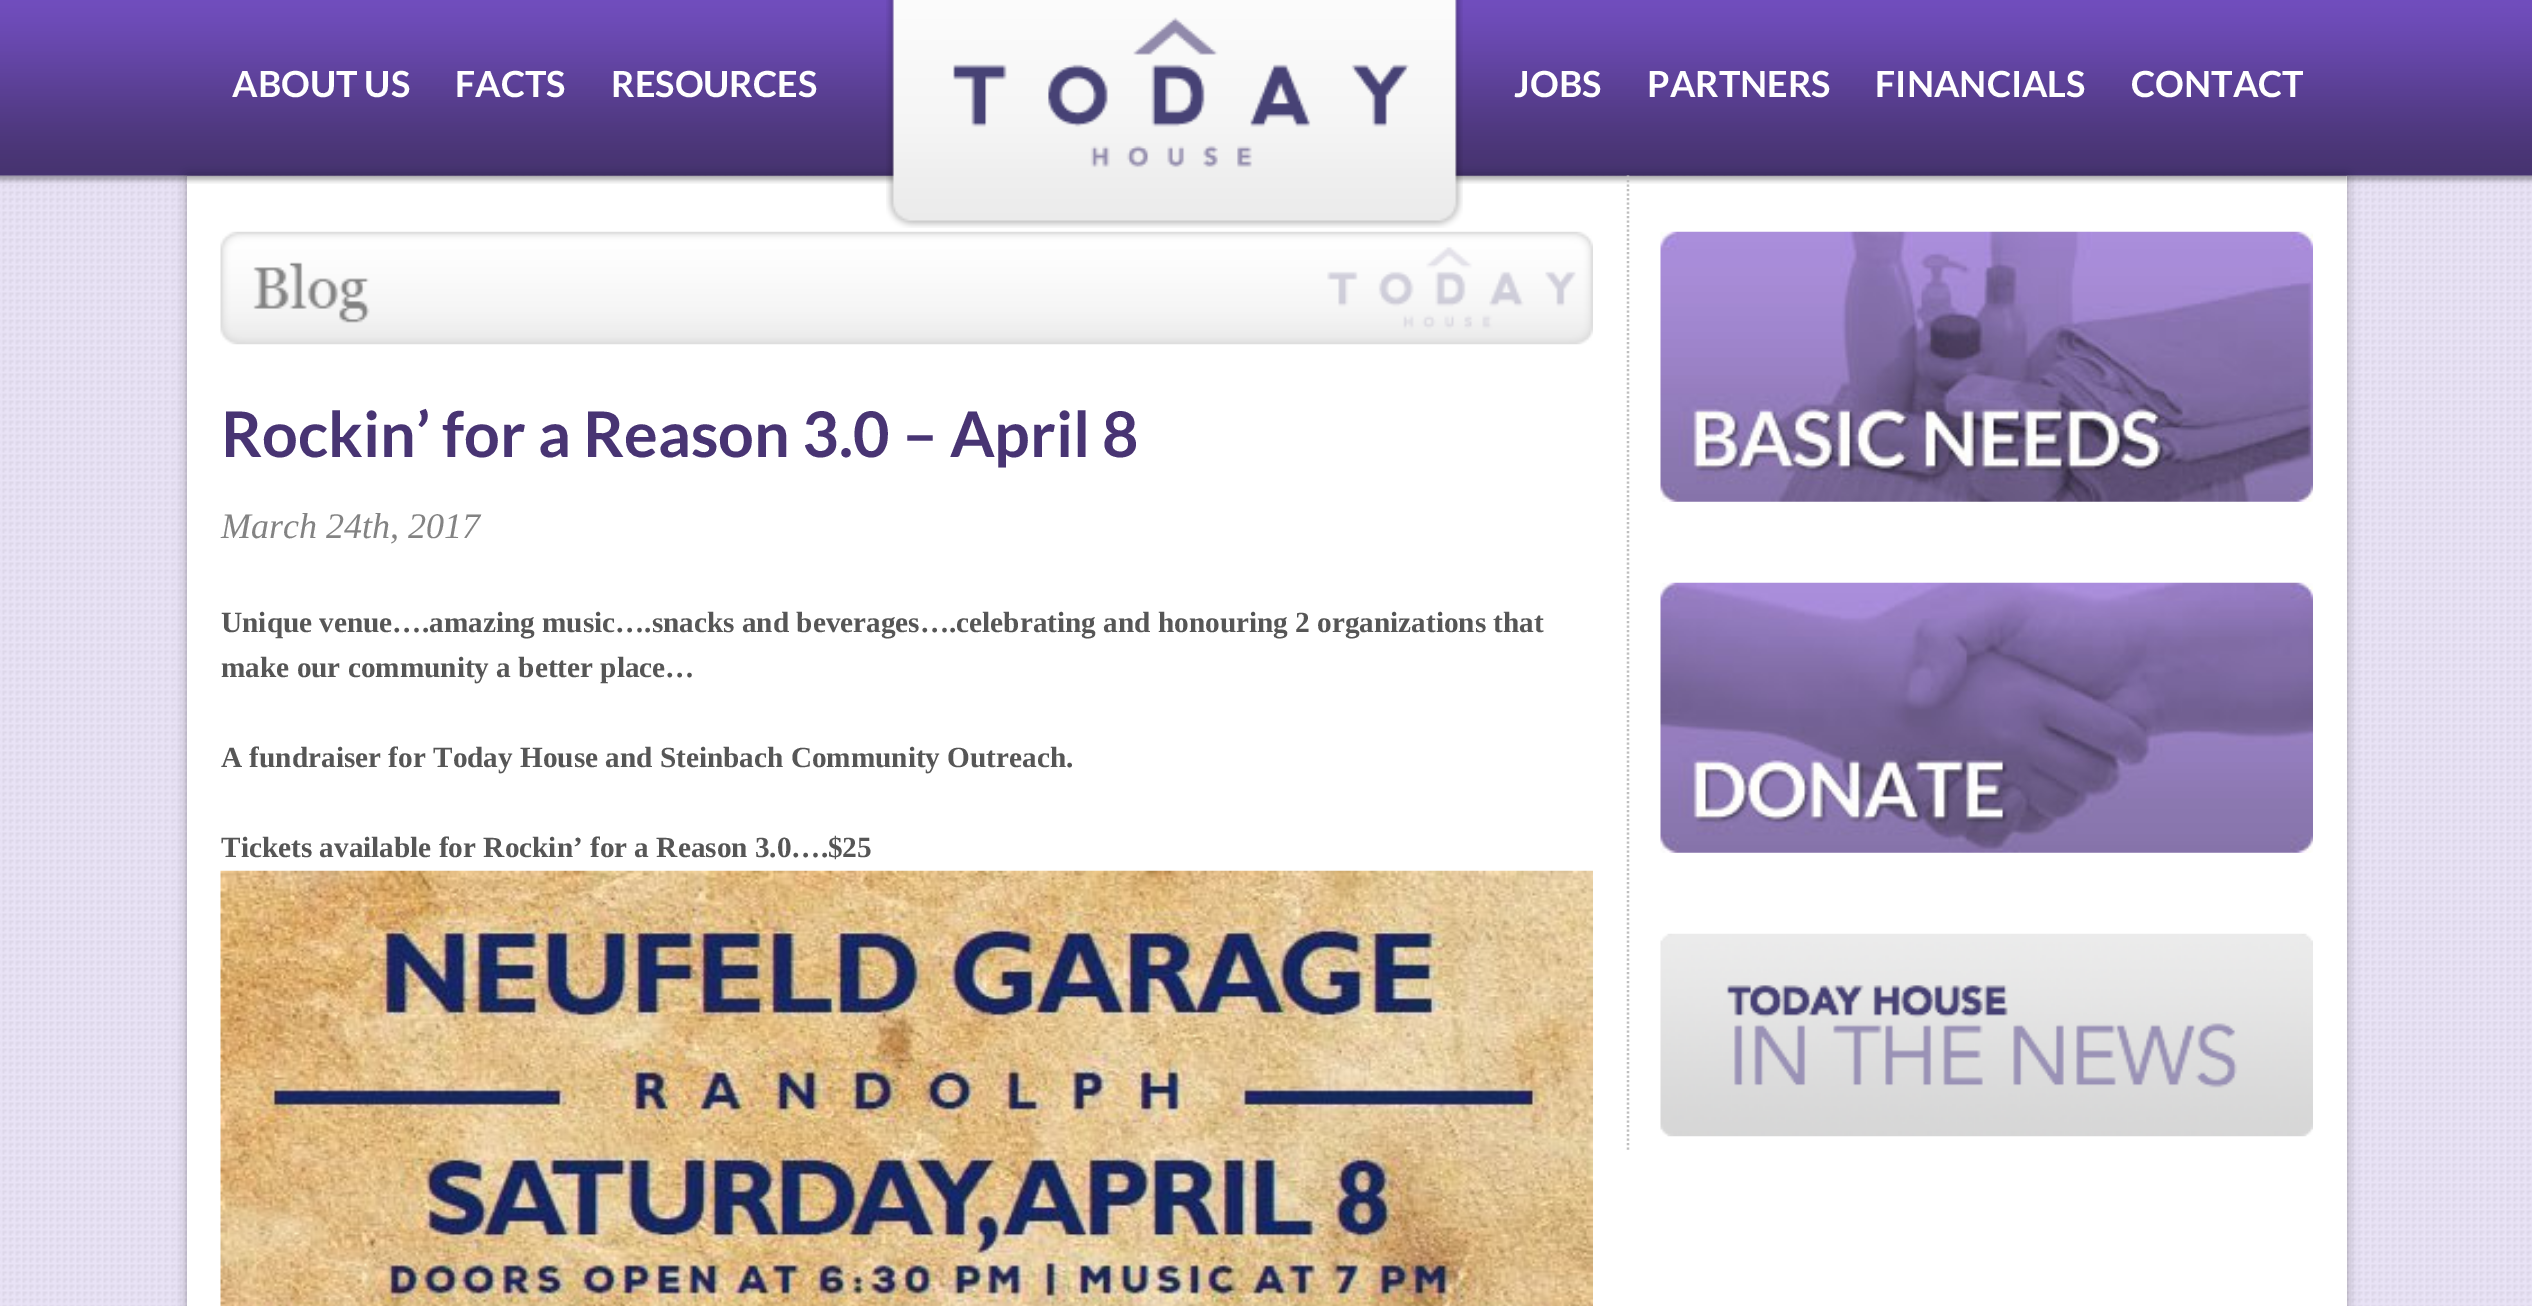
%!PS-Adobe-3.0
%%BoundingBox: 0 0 2532 1306
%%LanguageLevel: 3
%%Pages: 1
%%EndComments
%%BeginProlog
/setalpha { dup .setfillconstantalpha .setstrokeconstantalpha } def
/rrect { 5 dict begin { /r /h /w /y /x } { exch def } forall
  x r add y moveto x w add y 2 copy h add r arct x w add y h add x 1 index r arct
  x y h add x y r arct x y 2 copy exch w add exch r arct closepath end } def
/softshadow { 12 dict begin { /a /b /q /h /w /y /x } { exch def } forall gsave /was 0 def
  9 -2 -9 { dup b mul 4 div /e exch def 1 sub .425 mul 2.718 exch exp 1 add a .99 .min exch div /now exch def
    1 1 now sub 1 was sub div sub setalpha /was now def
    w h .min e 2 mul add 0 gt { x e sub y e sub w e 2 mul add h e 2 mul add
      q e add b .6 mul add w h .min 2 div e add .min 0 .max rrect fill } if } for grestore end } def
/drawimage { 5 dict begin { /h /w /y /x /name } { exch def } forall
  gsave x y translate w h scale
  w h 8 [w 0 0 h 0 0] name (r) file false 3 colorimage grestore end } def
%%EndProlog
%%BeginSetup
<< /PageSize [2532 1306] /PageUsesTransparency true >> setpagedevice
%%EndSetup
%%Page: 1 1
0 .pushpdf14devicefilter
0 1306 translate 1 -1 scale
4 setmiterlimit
1 setgray
0 0 2532 1306 rectfill
(images/1.raw) 0 175 2532 1131 drawimage
(images/2.raw) 0 0 2532 184 drawimage
0 setgray
187 176 2160 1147 0 5.5 0.3 softshadow
1 setgray
187 176 2160 1130 rectfill
(images/4.raw) 186 175 2161 9 drawimage
(images/3.raw) 886 0 577 228 drawimage
(images/5.raw) 220 231 1373 114 drawimage
(images/6.raw) 220 870 1373 436 drawimage
0.749 setgray
2.2 setlinewidth
[2.25 2.25] 0 setdash
newpath 1628 175.5 moveto 1628 1150 lineto stroke
(images/7.raw) 1660 231 653 271 drawimage
(images/8.raw) 1660 582 653 271 drawimage
(images/9.raw) 1660 933 653 204 drawimage
/Lato-Bold [36 0 0 -36 0 0] selectfont
1 setgray
232 97 moveto (ABOUT US) show
455 97 moveto (FACTS) show
611 97 moveto (RESOURCES) show
1514 97 moveto (JOBS) show
1647 97 moveto (PARTNERS) show
1875 97 moveto (FINANCIALS) show
2131 97 moveto (CONTACT) show
/Lato-Bold [63 0 0 -63 0 0] selectfont
0.282 0.204 0.451 setrgbcolor
221 457 moveto (Rockin’ for a Reason 3.0 – April 8) show
/LiberationSerif-Italic [36 0 0 -36 0 0] selectfont
0.514 setgray
221 538 moveto (March 24th, 2017) show
/LiberationSerif-Bold [29.25 0 0 -29.25 0 0] selectfont
0.337 setgray
221 632 moveto (Unique venue….amazing music….snacks and beverages….celebrating and honouring 2 organizations that) show
221 677 moveto (make our community a better place…) show
221 767 moveto (A fundraiser for Today House and Steinbach Community Outreach.) show
221 857 moveto (Tickets available for Rockin’ for a Reason 3.0….$25) show
.poppdf14devicefilter showpage
%%EOF
